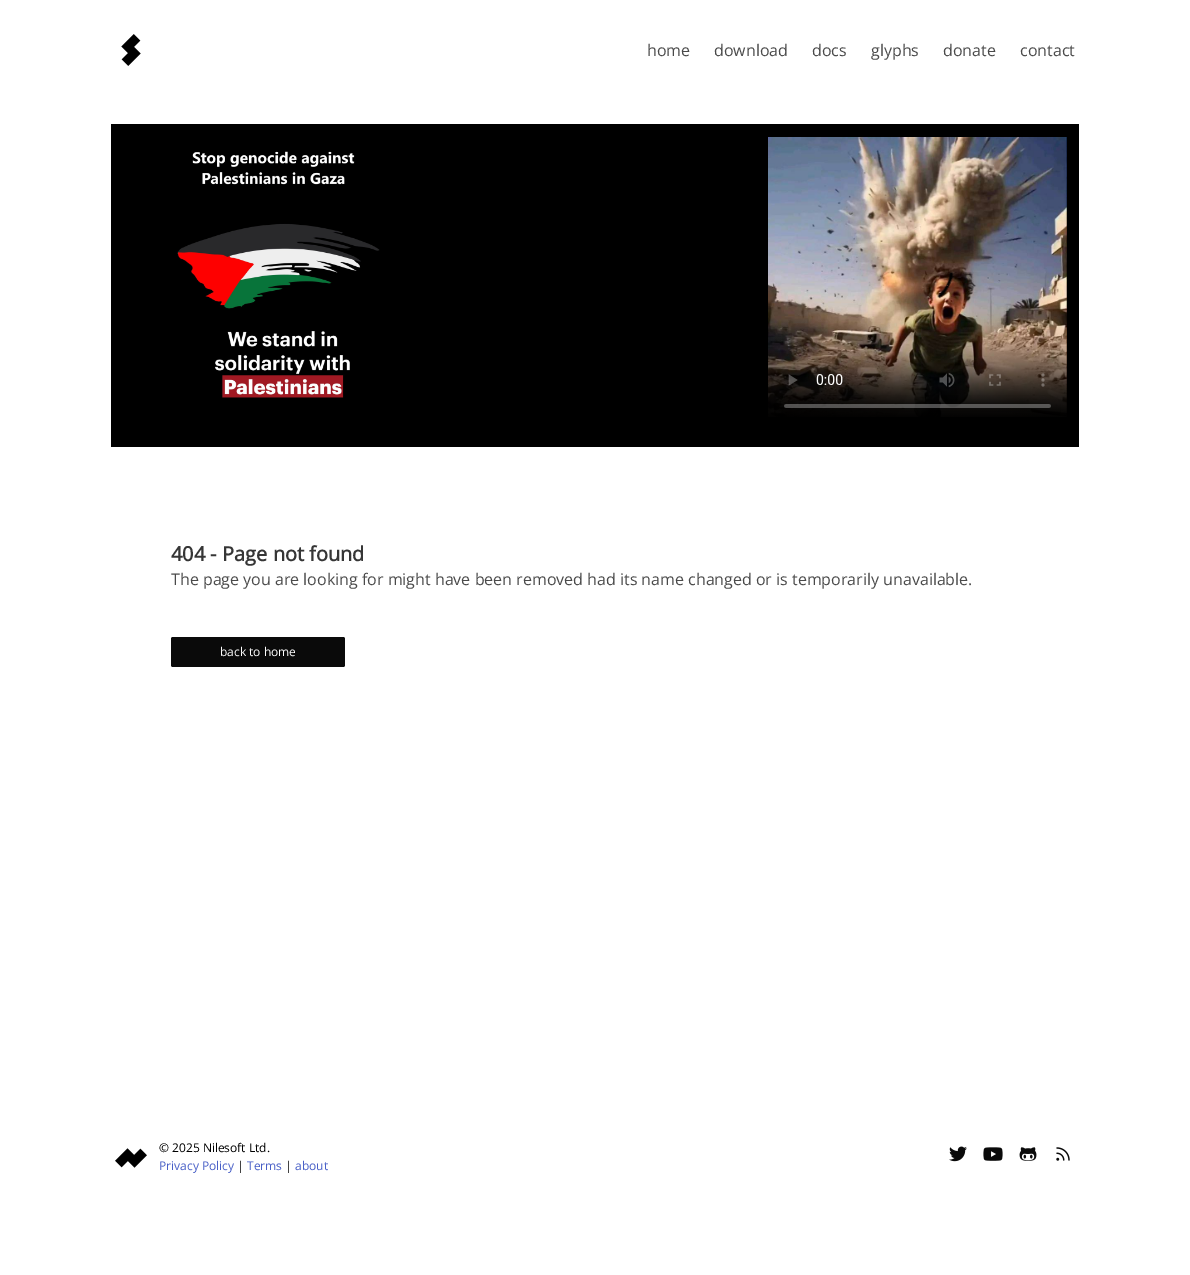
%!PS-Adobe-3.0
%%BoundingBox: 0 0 1190 1275
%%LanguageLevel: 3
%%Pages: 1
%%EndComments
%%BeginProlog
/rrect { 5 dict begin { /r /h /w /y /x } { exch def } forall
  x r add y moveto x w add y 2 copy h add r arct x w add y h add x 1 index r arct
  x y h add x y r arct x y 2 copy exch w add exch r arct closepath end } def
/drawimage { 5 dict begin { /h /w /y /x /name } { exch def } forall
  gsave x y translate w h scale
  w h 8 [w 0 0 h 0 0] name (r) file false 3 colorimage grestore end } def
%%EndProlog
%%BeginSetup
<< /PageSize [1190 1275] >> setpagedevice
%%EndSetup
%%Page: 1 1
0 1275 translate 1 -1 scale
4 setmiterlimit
1 setgray
0 0 1190 1275 rectfill
(images/1.raw) 121 34 20 32 drawimage
0 setgray
111 124 968 323 rectfill
(images/2.raw) 177 151 203 247 drawimage
(images/3.raw) 768 137 299 280 drawimage
0.039 setgray
171 637 174 30 2 rrect fill
(images/4.raw) 115 1148 32 20 drawimage
(images/5.raw) 949 1146 18 16 drawimage
(images/6.raw) 983 1147 20 14 drawimage
(images/7.raw) 1019 1147 18 14 drawimage
(images/8.raw) 1056 1147 14 14 drawimage
/OpenSans-Regular [16 0 0 -16 0 0] selectfont
0.29 setgray
647 56 moveto (home) show
714 56 moveto (download) show
812 56 moveto (docs) show
871 56 moveto (glyphs) show
943 56 moveto (donate) show
1020 56 moveto (contact) show
/OpenSans-Bold [20 0 0 -20 0 0] selectfont
0.212 setgray
171 561 moveto (404 - Page not found) show
/OpenSans-Regular [16 0 0 -16 0 0] selectfont
0.29 setgray
171 585 moveto (The page you are looking for might have been removed had its name changed or is temporarily unavailable.) show
/OpenSans-Regular [12 0 0 -12 0 0] selectfont
1 setgray
220 656 moveto (back to home) show
0 setgray
159 1152 moveto (© 2025 Nilesoft Ltd.) show
0.282 0.373 0.78 setrgbcolor
159 1170 moveto (Privacy Policy) show
0 setgray
237 1170 moveto (|) show
0.282 0.373 0.78 setrgbcolor
247 1170 moveto (Terms) show
0 setgray
285 1170 moveto (|) show
0.282 0.373 0.78 setrgbcolor
295 1170 moveto (about) show
showpage
%%EOF
